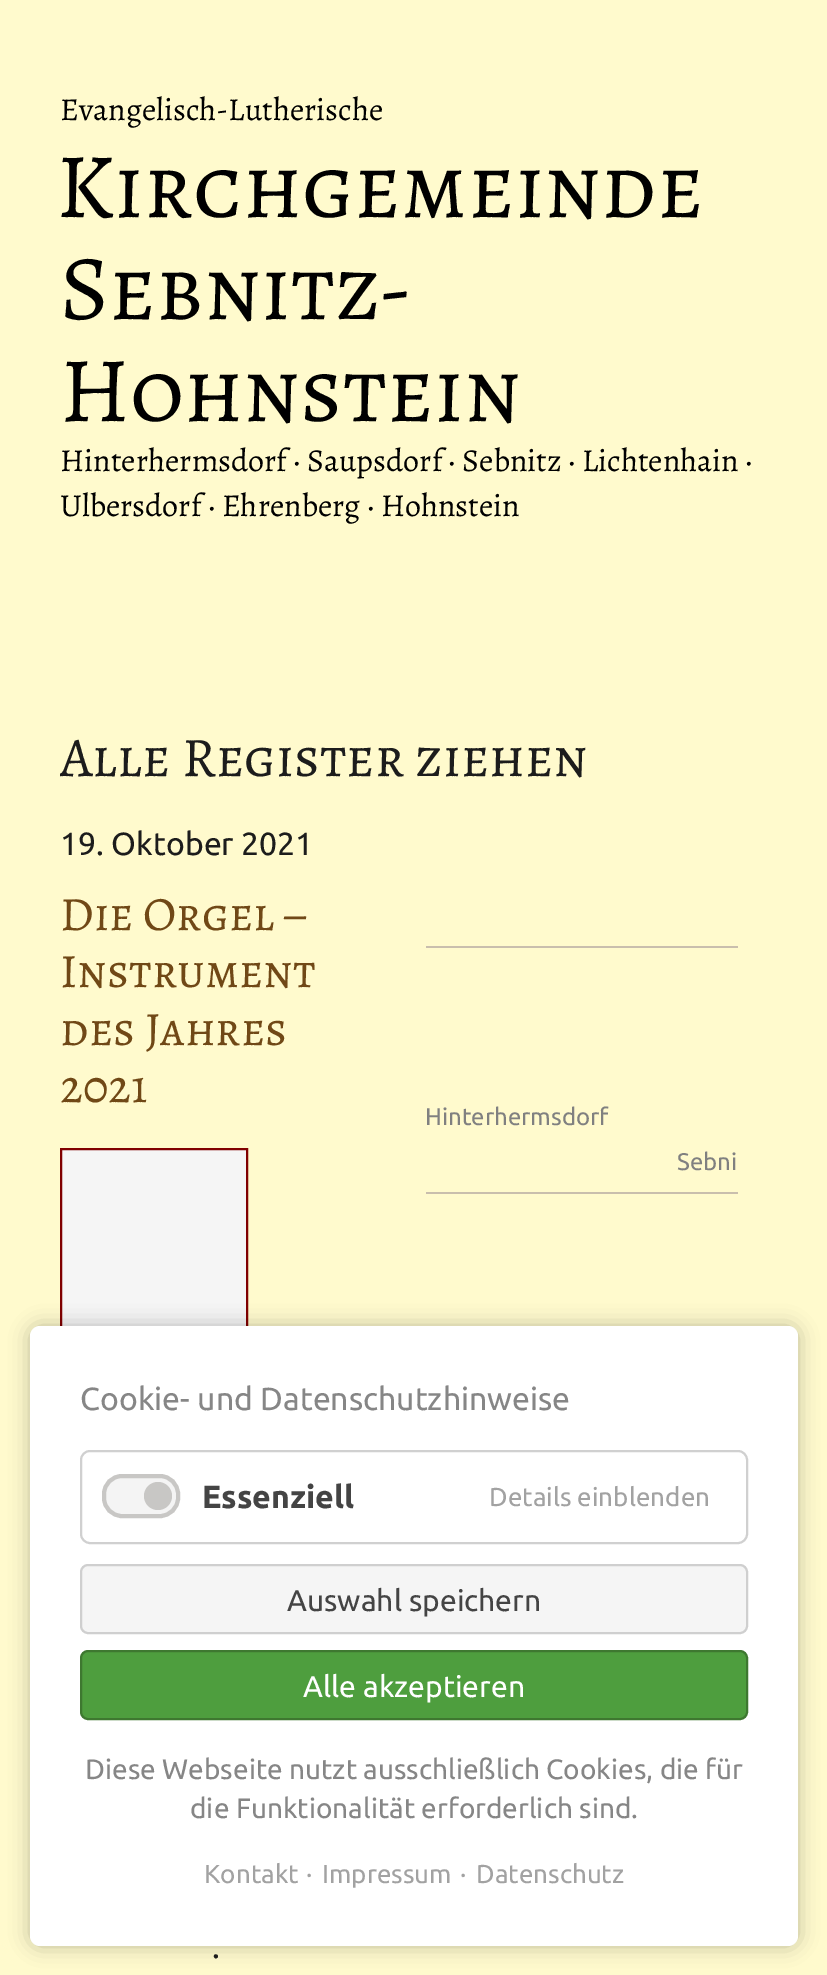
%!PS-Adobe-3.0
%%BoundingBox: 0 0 827 1975
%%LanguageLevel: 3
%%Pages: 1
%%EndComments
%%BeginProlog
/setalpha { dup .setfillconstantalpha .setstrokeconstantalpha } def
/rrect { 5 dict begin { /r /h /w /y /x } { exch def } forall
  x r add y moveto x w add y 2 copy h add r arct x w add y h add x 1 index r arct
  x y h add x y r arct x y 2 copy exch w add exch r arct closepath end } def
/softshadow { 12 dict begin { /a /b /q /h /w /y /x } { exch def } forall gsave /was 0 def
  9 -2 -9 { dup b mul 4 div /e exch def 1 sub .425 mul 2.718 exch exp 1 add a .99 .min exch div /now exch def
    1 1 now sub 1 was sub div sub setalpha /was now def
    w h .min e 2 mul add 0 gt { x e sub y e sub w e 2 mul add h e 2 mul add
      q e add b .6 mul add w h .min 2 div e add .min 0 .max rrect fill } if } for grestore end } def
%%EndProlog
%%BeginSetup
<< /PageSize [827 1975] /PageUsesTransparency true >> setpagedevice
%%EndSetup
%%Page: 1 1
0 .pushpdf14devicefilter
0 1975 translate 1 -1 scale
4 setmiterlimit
1 0.98 0.804 setrgbcolor
0 0 827 1975 rectfill
0.961 setgray
62 1150 184 176 rectfill
0.502 0 0 setrgbcolor
2 setlinewidth
61 1149 186 250 rectstroke
0.788 0.745 0.678 setrgbcolor
426 946 312 2 rectfill
426 1192 312 2 rectfill
0 setgray
30 1326 768 620 10 10 0.25 softshadow
1 setgray
30 1326 768 620 10 rrect fill
0.816 setgray
81 1451 666 92 9 rrect stroke
0.957 setgray
104 1476 74 40 18 rrect gsave fill grestore
0.784 0.78 0.773 setrgbcolor
4 setlinewidth
stroke
newpath 158 1496 14 0 360 arc closepath fill
0.961 setgray
81 1565 666 68 7 rrect gsave fill grestore
0.812 setgray
2 setlinewidth
stroke
0.306 0.62 0.243 setrgbcolor
81 1651 666 68 7 rrect gsave fill grestore
0.243 0.471 0.188 setrgbcolor
stroke
/Alegreya-Regular [32 0 0 -32 0 0] selectfont
0 setgray
60 120 moveto (Evangelisch-Lutherische) show
/AlegreyaSC-Regular [92.75 0 0 -92.75 0 0] selectfont
56 217 moveto (Kirchgemeinde) show
60 319 moveto (Sebnitz-) show
60 421 moveto (Hohnstein) show
/Alegreya-Regular [32 0 0 -32 0 0] selectfont
60 471 moveto (Hinterhermsdorf · Saupsdorf · Sebnitz · Lichtenhain ·) show
60 516 moveto (Ulbersdorf · Ehrenberg · Hohnstein) show
gsave
60 726 678 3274 rectclip
/AlegreyaSC-Regular [56 0 0 -56 0 0] selectfont
0.11 setgray
60 776 moveto (Alle Register ziehen) show
grestore
/Ubuntu-Regular [32 0 0 -32 0 0] selectfont
0.11 setgray
60 855 moveto (19. Oktober 2021) show
/AlegreyaSC-Regular [48 0 0 -48 0 0] selectfont
0.439 0.282 0.086 setrgbcolor
60 930 moveto (Die Orgel –) show
60 987 moveto (Instrument) show
60 1045 moveto (des Jahres) show
60 1102 moveto (2021) show
/Ubuntu-Regular [32 0 0 -32 0 0] selectfont
0.11 setgray
212 1958 moveto (.) show
/Ubuntu-Regular [24 0 0 -24 0 0] selectfont
0.502 setgray
425 1125 moveto (Hinterhermsdorf) show
677 1170 moveto (Sebni) show
/Ubuntu-Regular [32 0 0 -32 0 0] selectfont
0.525 setgray
80 1410 moveto (Cookie- und Datenschutzhinweise) show
/Ubuntu-Bold [32 0 0 -32 0 0] selectfont
0.267 setgray
202 1508 moveto (Essenziell) show
/Ubuntu-Regular [26 0 0 -26 0 0] selectfont
0.635 setgray
489 1506 moveto (Details einblenden) show
/Ubuntu-Regular [30 0 0 -30 0 0] selectfont
0.267 setgray
287 1611 moveto (Auswahl speichern) show
1 setgray
303 1697 moveto (Alle akzeptieren) show
/Ubuntu-Regular [28 0 0 -28 0 0] selectfont
0.525 setgray
85 1779 moveto (Diese Webseite nutzt ausschließlich Cookies, die für) show
190 1818 moveto (die Funktionalität erforderlich sind.) show
/Ubuntu-Regular [26 0 0 -26 0 0] selectfont
0.635 setgray
204 1883 moveto (Kontakt) show
306 1883 moveto (·) show
322 1883 moveto (Impressum) show
460 1883 moveto (·) show
476 1883 moveto (Datenschutz) show
.poppdf14devicefilter showpage
%%EOF
